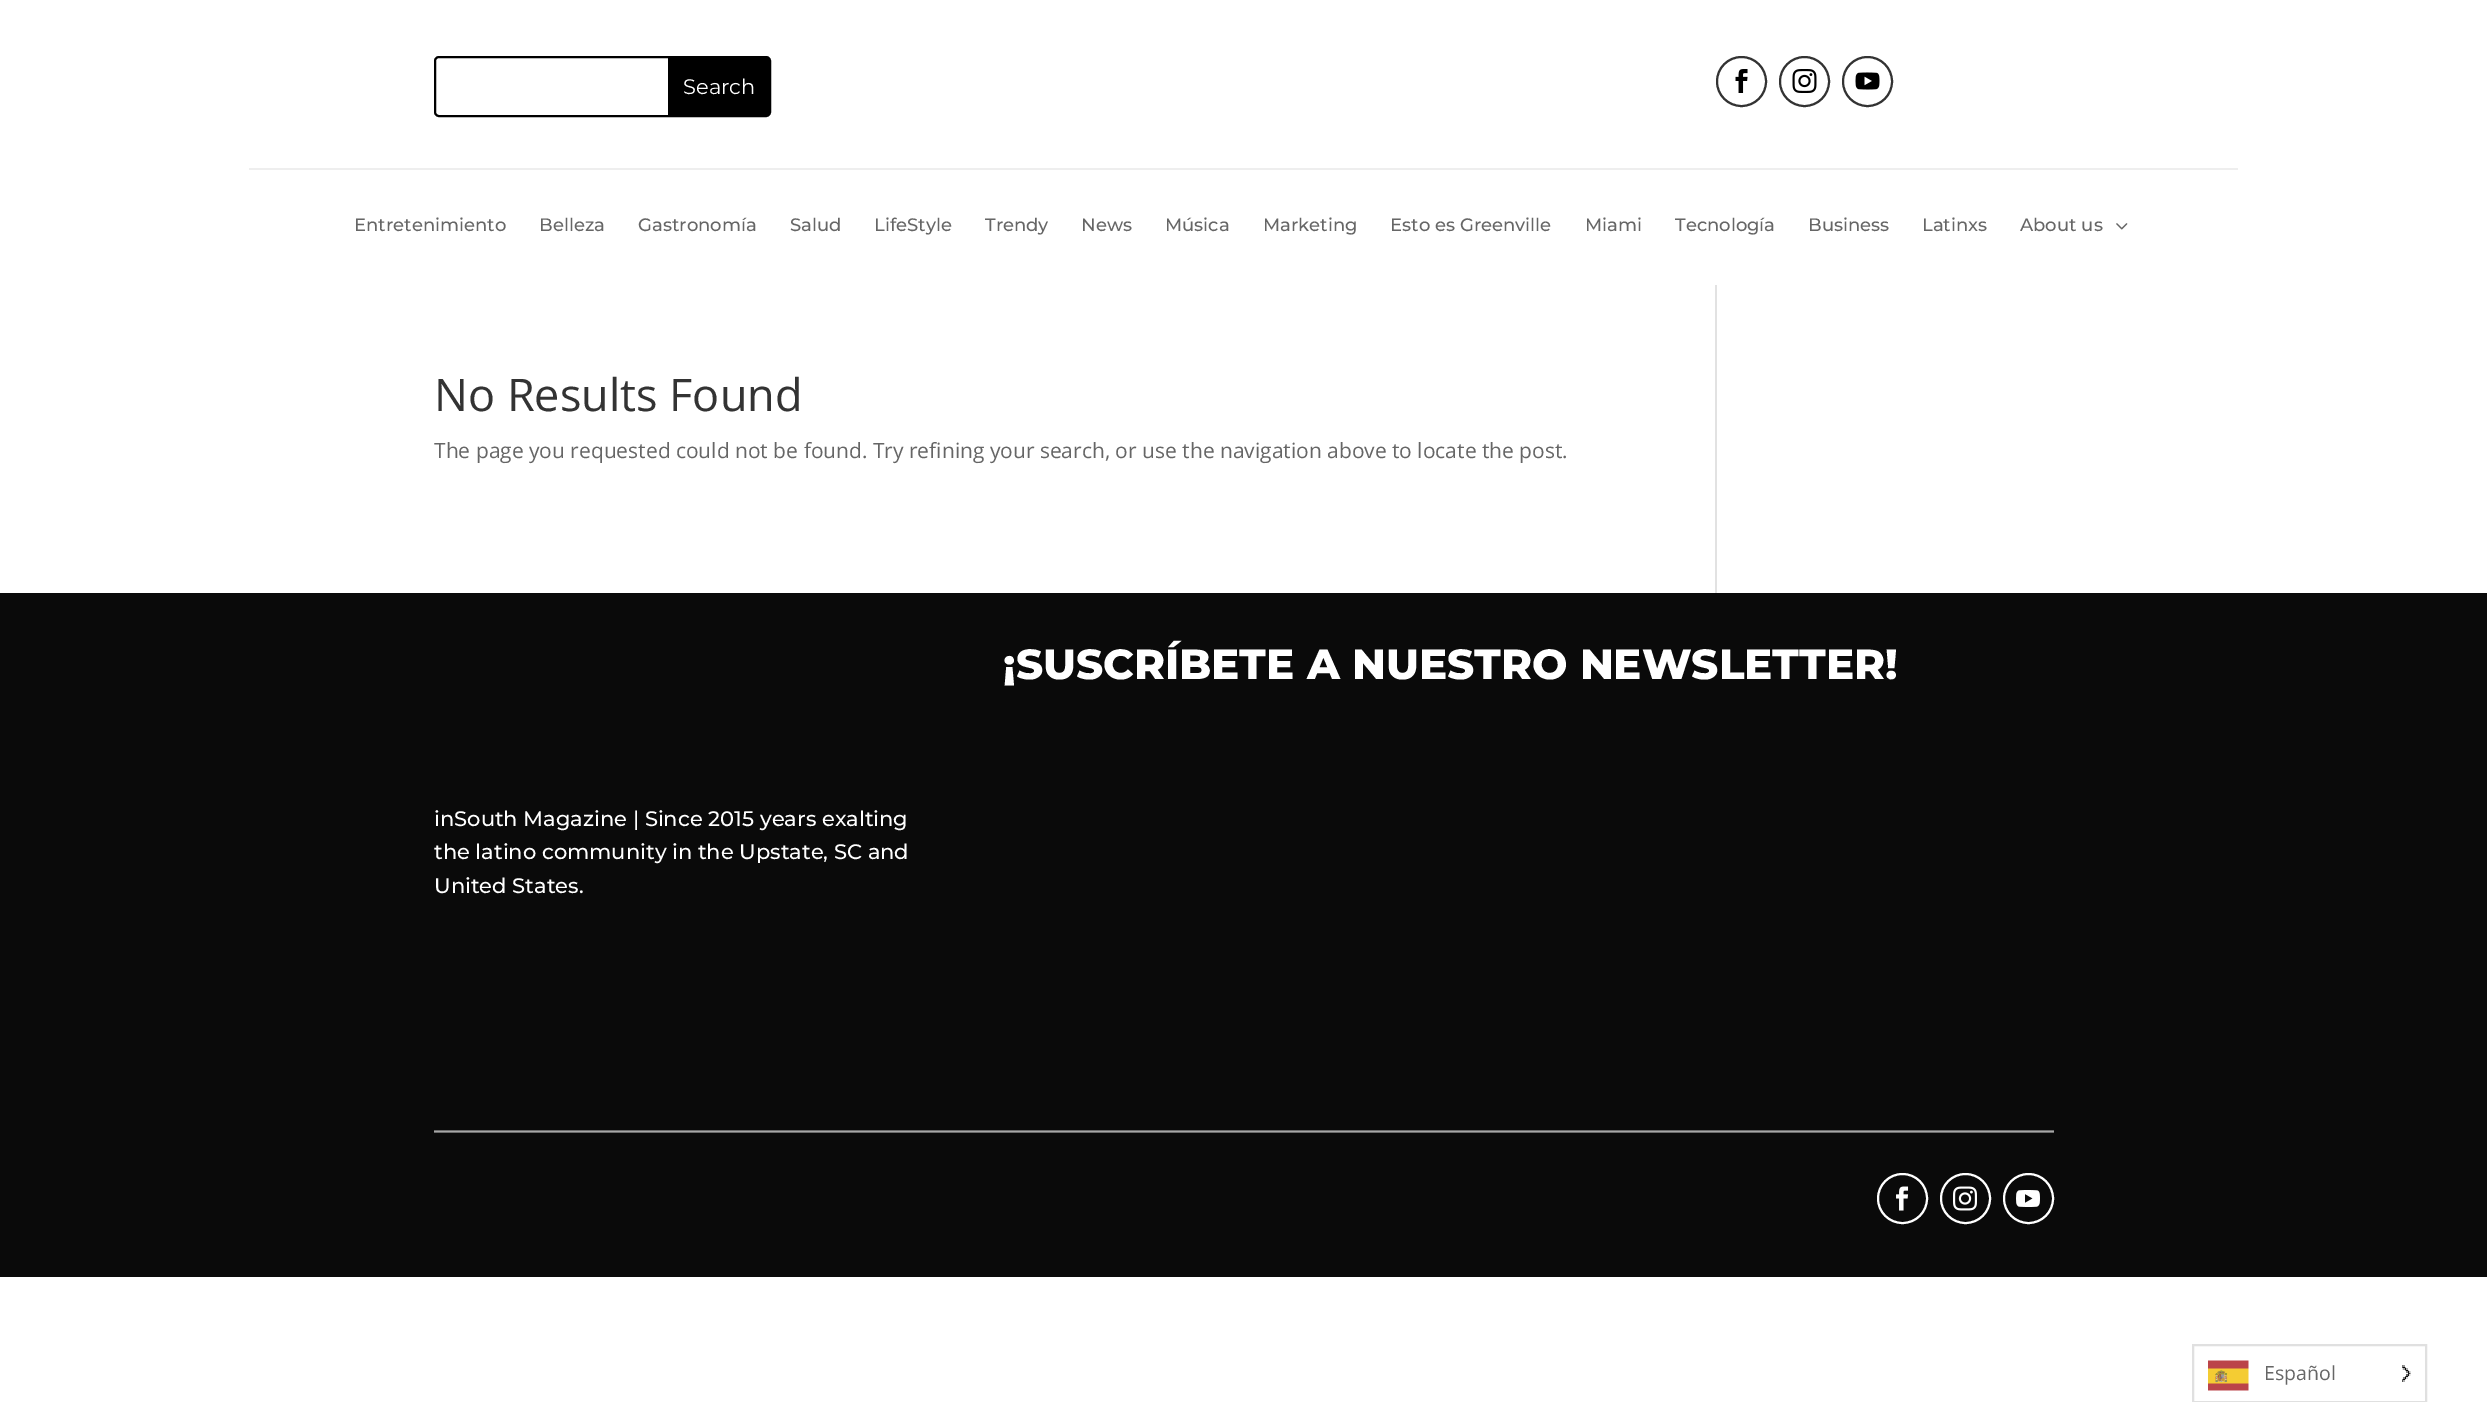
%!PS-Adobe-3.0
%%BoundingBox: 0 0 2487 1402
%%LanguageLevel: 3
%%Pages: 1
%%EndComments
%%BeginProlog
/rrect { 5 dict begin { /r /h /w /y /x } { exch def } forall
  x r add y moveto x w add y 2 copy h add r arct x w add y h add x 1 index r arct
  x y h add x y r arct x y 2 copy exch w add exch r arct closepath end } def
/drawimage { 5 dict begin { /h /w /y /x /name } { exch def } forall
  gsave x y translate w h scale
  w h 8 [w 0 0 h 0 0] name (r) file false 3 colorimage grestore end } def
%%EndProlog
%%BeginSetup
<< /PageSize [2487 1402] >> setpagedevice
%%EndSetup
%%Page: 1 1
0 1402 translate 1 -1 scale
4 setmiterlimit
1 setgray
0 0 2487 1402 rectfill
0 setgray
2 setlinewidth
435 57 335 59 4 rrect stroke
newpath 668 57 moveto 767 57 lineto 768.5 57 770 58.5 770 60 curveto 770 113 lineto 770 114.5 768.5 116 767 116 curveto 668 116 lineto closepath fill
0.2 setgray
newpath 1741.5 81.5 24.5 0 360 arc closepath stroke
(images/1.raw) 1735 69 13 24 drawimage
newpath 1804.5 81.5 24.5 0 360 arc closepath stroke
(images/2.raw) 1792 69 25 24 drawimage
newpath 1867.5 81.5 24.5 0 360 arc closepath stroke
(images/3.raw) 1855 72 25 18 drawimage
0.933 setgray
249 168 1989 2 rectfill
(images/4.raw) 2116 223 12 7 drawimage
0.886 setgray
1715 285 2 308 rectfill
0.039 setgray
0 593 2487 684 rectfill
0.424 setgray
434 1132 1620 1 rectfill
434 1130 1620 1 rectfill
0.655 setgray
434 1131 1620 1 rectfill
1 setgray
newpath 1902.5 1198.5 24.5 0 360 arc closepath stroke
(images/5.raw) 1896 1186 13 25 drawimage
newpath 1965.5 1198.5 24.5 0 360 arc closepath stroke
(images/6.raw) 1953 1186 24 25 drawimage
newpath 2028.5 1198.5 24.5 0 360 arc closepath stroke
(images/7.raw) 2016 1190 24 17 drawimage
0.878 setgray
2193 1345 233 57 rectstroke
(images/8.raw) 2208 1360 41 31 drawimage
(images/9.raw) 2402 1365 9 17 drawimage
/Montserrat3-Thin [21 0 0 -21 0 0] selectfont
1 setgray
683 94 moveto (Search) show
/Montserrat-Thin [18 0 0 -18 0 0] selectfont
0.4 setgray
354 231 moveto (Entretenimiento) show
539 231 moveto (Belleza) show
638 231 moveto (Gastronomía) show
790 231 moveto (Salud) show
874 231 moveto (LifeStyle) show
985 231 moveto (Trendy) show
1081 231 moveto (News) show
1165 231 moveto (Música) show
1263 231 moveto (Marketing) show
1390 231 moveto (Esto es Greenville) show
1585 231 moveto (Miami) show
1675 231 moveto (Tecnología) show
1808 231 moveto (Business) show
1922 231 moveto (Latinxs) show
2020 231 moveto (About us) show
/OpenSans-Regular [45 0 0 -45 0 0] selectfont
0.2 setgray
434 411 moveto (No Results Found) show
/OpenSans-Regular [21 0 0 -21 0 0] selectfont
0.4 setgray
434 458 moveto (The page you requested could not be found. Try refining your search, or use the navigation above to locate the post.) show
/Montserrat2-Thin [42 0 0 -42 0 0] selectfont
1 setgray
1003 679 moveto (¡SUSCRÍBETE A NUESTRO NEWSLETTER!) show
/Montserrat-Thin [21 0 0 -21 0 0] selectfont
434 826 moveto (inSouth Magazine | Since 2015 years exalting) show
434 859 moveto (the latino community in the Upstate, SC and) show
434 893 moveto (United States.) show
/OpenSans-Regular [19.5 0 0 -19.5 0 0] selectfont
0.4 setgray
2264 1380 moveto (Español) show
showpage
%%EOF
